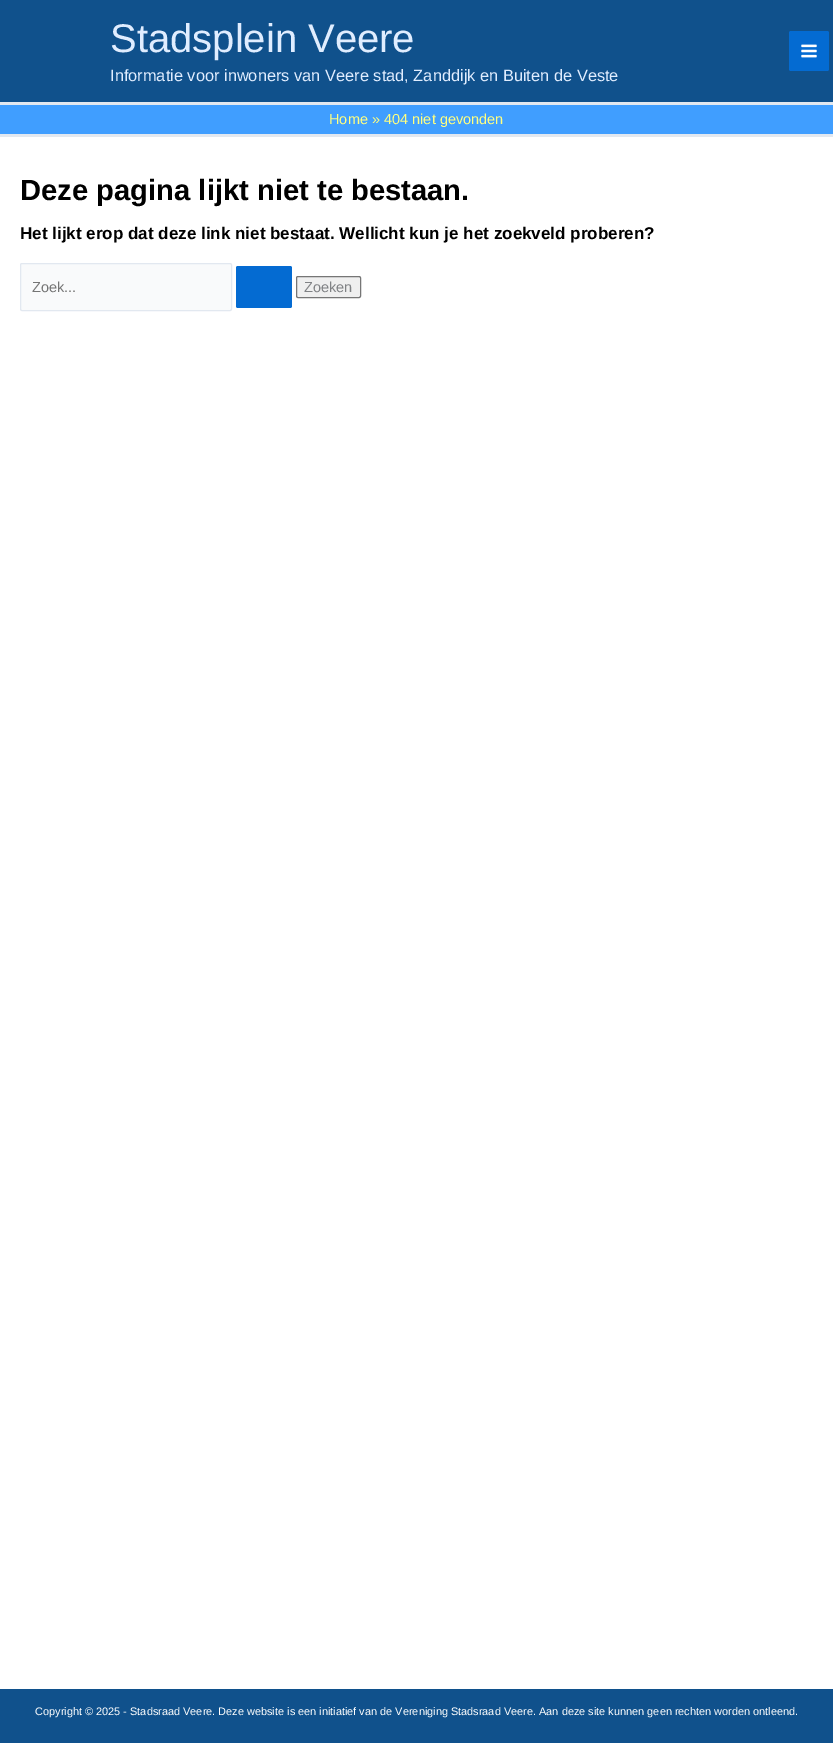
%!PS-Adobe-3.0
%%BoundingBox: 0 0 833 1743
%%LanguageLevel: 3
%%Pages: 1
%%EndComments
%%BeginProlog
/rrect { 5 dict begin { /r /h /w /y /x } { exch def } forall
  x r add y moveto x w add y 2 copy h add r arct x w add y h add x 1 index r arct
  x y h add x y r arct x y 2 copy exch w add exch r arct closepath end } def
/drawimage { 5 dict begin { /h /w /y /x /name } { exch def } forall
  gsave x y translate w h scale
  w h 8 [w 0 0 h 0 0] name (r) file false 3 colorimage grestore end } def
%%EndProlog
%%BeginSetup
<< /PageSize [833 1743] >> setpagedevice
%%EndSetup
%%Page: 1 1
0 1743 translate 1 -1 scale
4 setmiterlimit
1 setgray
0 0 833 1743 rectfill
0.063 0.318 0.549 setrgbcolor
0 0 833 102 rectfill
0.886 0.91 0.941 setrgbcolor
0 102 833 3 rectfill
0.016 0.42 0.824 setrgbcolor
789 31 40 40 2 rrect fill
(images/1.raw) 801 44 16 14 drawimage
0.251 0.62 1 setrgbcolor
0 105 833 29 rectfill
0.886 0.91 0.941 setrgbcolor
0 134 833 3 rectfill
0.976 0.98 0.984 setrgbcolor
20.5 263.5 211 47 1.5 rrect gsave fill grestore
0.886 0.91 0.941 setrgbcolor
stroke
0.016 0.42 0.824 setrgbcolor
236 266 56 42 2 rrect fill
0.937 setgray
296.5 276.5 64 21 1.5 rrect gsave fill grestore
0.463 setgray
stroke
0.063 0.318 0.549 setrgbcolor
0 1689 833 54 rectfill
/LiberationSans-Regular [40 0 0 -40 0 0] selectfont
0.878 0.929 1 setrgbcolor
110 52 moveto (Stadsplein Veere) show
/LiberationSans-Regular [16.4 0 0 -16.4 0 0] selectfont
110 81 moveto (Informatie voor inwoners van Veere stad, Zanddijk en Buiten de Veste) show
/LiberationSans-Regular [14.5 0 0 -14.5 0 0] selectfont
1 1 0.502 setrgbcolor
329 124 moveto (Home ») show
384 124 moveto (404 niet gevonden) show
/LiberationSans-Bold [29.2 0 0 -29.2 0 0] selectfont
0 setgray
20 200 moveto (Deze pagina lijkt niet te bestaan.) show
/LiberationSans-Bold [17.05 0 0 -17.05 0 0] selectfont
20 239 moveto (Het lijkt erop dat deze link niet bestaat. Wellicht kun je het zoekveld proberen?) show
/LiberationSans-Regular [14.5 0 0 -14.5 0 0] selectfont
0.459 setgray
32 292 moveto (Zoek...) show
0.502 0.51 0.522 setrgbcolor
304 292 moveto (Zoeken) show
/LiberationSans-Regular [10.95 0 0 -10.95 0 0] selectfont
1 setgray
35 1715 moveto (Copyright © 2025 - Stadsraad Veere. Deze website is een initiatief van de Vereniging Stadsraad Veere. Aan deze site kunnen geen rechten worden ontleend.) show
showpage
%%EOF
